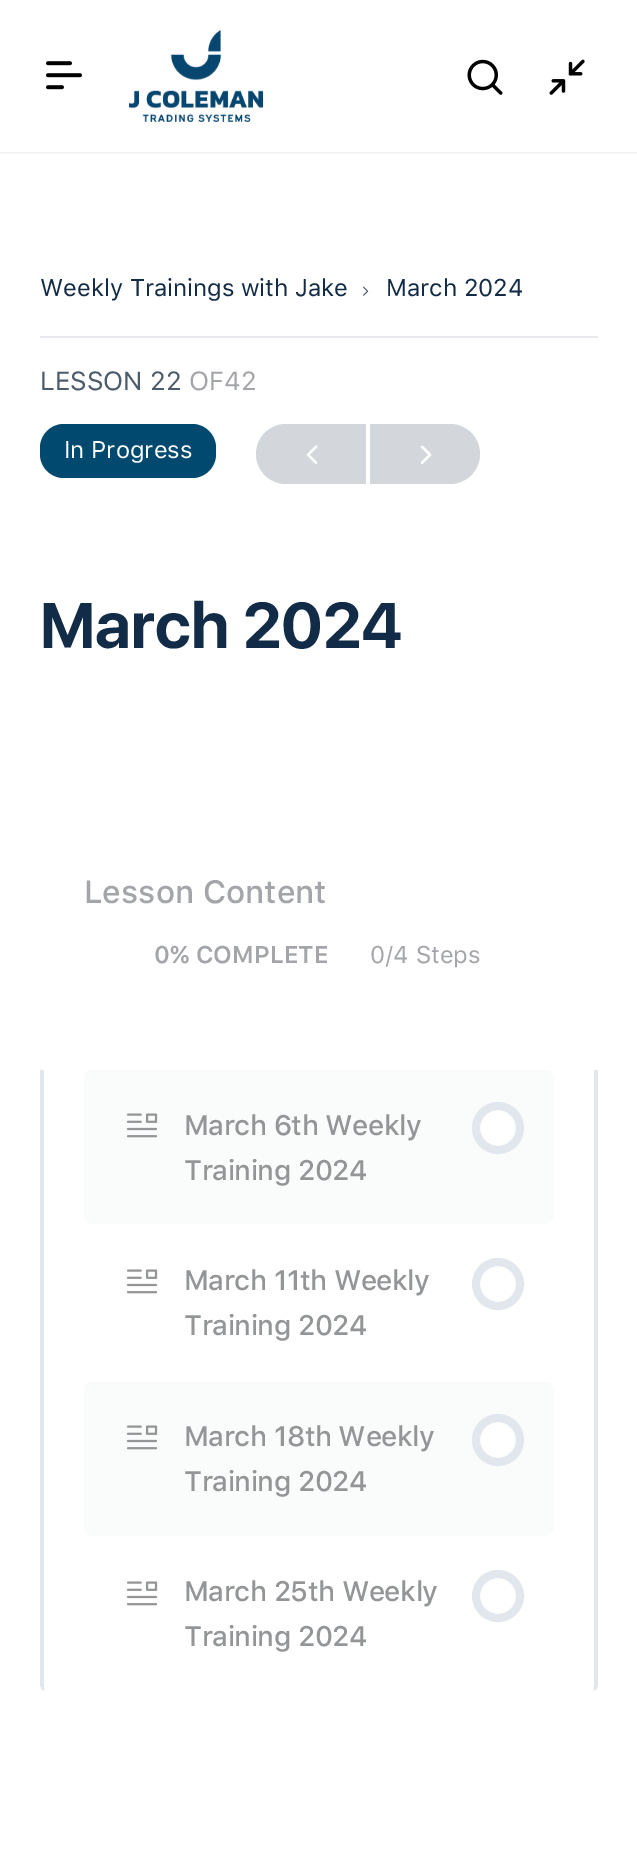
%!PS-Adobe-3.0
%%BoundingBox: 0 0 637 1852
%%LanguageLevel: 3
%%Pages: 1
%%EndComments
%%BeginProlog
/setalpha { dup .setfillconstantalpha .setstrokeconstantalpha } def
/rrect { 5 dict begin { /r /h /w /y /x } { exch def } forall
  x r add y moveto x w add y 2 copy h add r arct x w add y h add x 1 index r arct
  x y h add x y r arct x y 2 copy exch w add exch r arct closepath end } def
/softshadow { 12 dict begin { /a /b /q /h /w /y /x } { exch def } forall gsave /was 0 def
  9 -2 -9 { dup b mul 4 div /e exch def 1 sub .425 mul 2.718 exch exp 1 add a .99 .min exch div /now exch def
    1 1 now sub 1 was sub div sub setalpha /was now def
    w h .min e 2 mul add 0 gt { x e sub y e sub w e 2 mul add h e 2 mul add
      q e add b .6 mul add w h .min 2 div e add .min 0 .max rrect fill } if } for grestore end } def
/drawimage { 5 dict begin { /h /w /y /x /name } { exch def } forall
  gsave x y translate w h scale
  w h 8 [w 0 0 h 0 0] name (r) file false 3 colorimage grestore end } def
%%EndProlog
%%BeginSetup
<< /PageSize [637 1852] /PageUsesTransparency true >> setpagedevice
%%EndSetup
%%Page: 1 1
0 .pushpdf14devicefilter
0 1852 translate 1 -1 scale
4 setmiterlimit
1 setgray
0 0 637 1852 rectfill
0.255 0.278 0.424 setrgbcolor
0 0 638 152 0 1 0.15 softshadow
0.05 setalpha
0.545 0.553 0.616 setrgbcolor
0 152 637 2 rectfill
1 setalpha
1 setgray
0 0 637 152 rectfill
(images/1.raw) 46 61 36 29 drawimage
(images/2.raw) 129 29 135 93 drawimage
(images/3.raw) 467 59 36 36 drawimage
(images/4.raw) 549 59 36 36 drawimage
0.906 0.914 0.925 setrgbcolor
40 336 558 2 rectfill
(images/5.raw) 363 286 6 10 drawimage
0.004 0.286 0.435 setrgbcolor
40 424 176 54 24 rrect fill
0.827 0.843 0.859 setrgbcolor
newpath 286 424 moveto 366 424 lineto 366 484 lineto 286 484 lineto 269.5 484 256 470.5 256 454 curveto 256 437.5 269.5 424 286 424 curveto closepath fill
(images/6.raw) 306 445 12 19 drawimage
newpath 370 424 moveto 450 424 lineto 466.5 424 480 437.5 480 454 curveto 480 470.5 466.5 484 450 484 curveto 370 484 lineto closepath fill
(images/7.raw) 420 445 12 19 drawimage
gsave
40 824 558 870 12 rrect clip newpath
0.886 0.906 0.929 setrgbcolor
594 1070 4 624 rectfill
40 1070 4 624 rectfill
grestore
0.98 0.984 0.984 setrgbcolor
84 1070 470 154 8 rrect fill
(images/8.raw) 126 1113 32 25 drawimage
1 setgray
newpath 498 1128 22 0 360 arc closepath gsave fill grestore
0.886 0.906 0.929 setrgbcolor
8 setlinewidth
stroke
(images/9.raw) 126 1269 32 25 drawimage
newpath 498 1284 22 0 360 arc closepath stroke
0.98 0.984 0.984 setrgbcolor
84 1382 470 154 8 rrect fill
(images/8.raw) 126 1425 32 25 drawimage
1 setgray
newpath 498 1440 22 0 360 arc closepath gsave fill grestore
0.886 0.906 0.929 setrgbcolor
stroke
(images/9.raw) 126 1581 32 25 drawimage
newpath 498 1596 22 0 360 arc closepath stroke
/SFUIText-Regular [24 0 0 -24 0 0] selectfont
0.071 0.169 0.275 setrgbcolor
40 296 moveto (Weekly Trainings with Jake) show
386 296 moveto (March 2024) show
/SFUIText-Regular [26 0 0 -26 0 0] selectfont
0.302 0.361 0.427 setrgbcolor
40 390 moveto (LESSON 22) show
0.639 0.647 0.663 setrgbcolor
189 390 moveto (OF42) show
/SFUIText-Regular [24 0 0 -24 0 0] selectfont
1 setgray
64 458 moveto (In Progress) show
/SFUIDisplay-Bold [64 0 0 -64 0 0] selectfont
0.071 0.169 0.275 setrgbcolor
40 648 moveto (March 2024) show
/SFUIText-Medium [32 0 0 -32 0 0] selectfont
0.639 0.647 0.663 setrgbcolor
84 903 moveto (Lesson Content) show
/SFUIText-SemiBold [24 0 0 -24 0 0] selectfont
154 963 moveto (0% COMPLETE) show
/SFUIText-Regular [24 0 0 -24 0 0] selectfont
370 963 moveto (0/4 Steps) show
/SFUIText-Medium [28 0 0 -28 0 0] selectfont
0.576 0.584 0.592 setrgbcolor
184 1135 moveto -0.5 0 (March 6th Weekly) ashow
184 1180 moveto -0.5 0 (Training 2024) ashow
184 1290 moveto -0.5 0 (March 11th Weekly) ashow
184 1335 moveto -0.5 0 (Training 2024) ashow
184 1446 moveto -0.5 0 (March 18th Weekly) ashow
184 1491 moveto -0.5 0 (Training 2024) ashow
184 1601 moveto -0.5 0 (March 25th Weekly) ashow
184 1646 moveto -0.5 0 (Training 2024) ashow
.poppdf14devicefilter showpage
%%EOF
